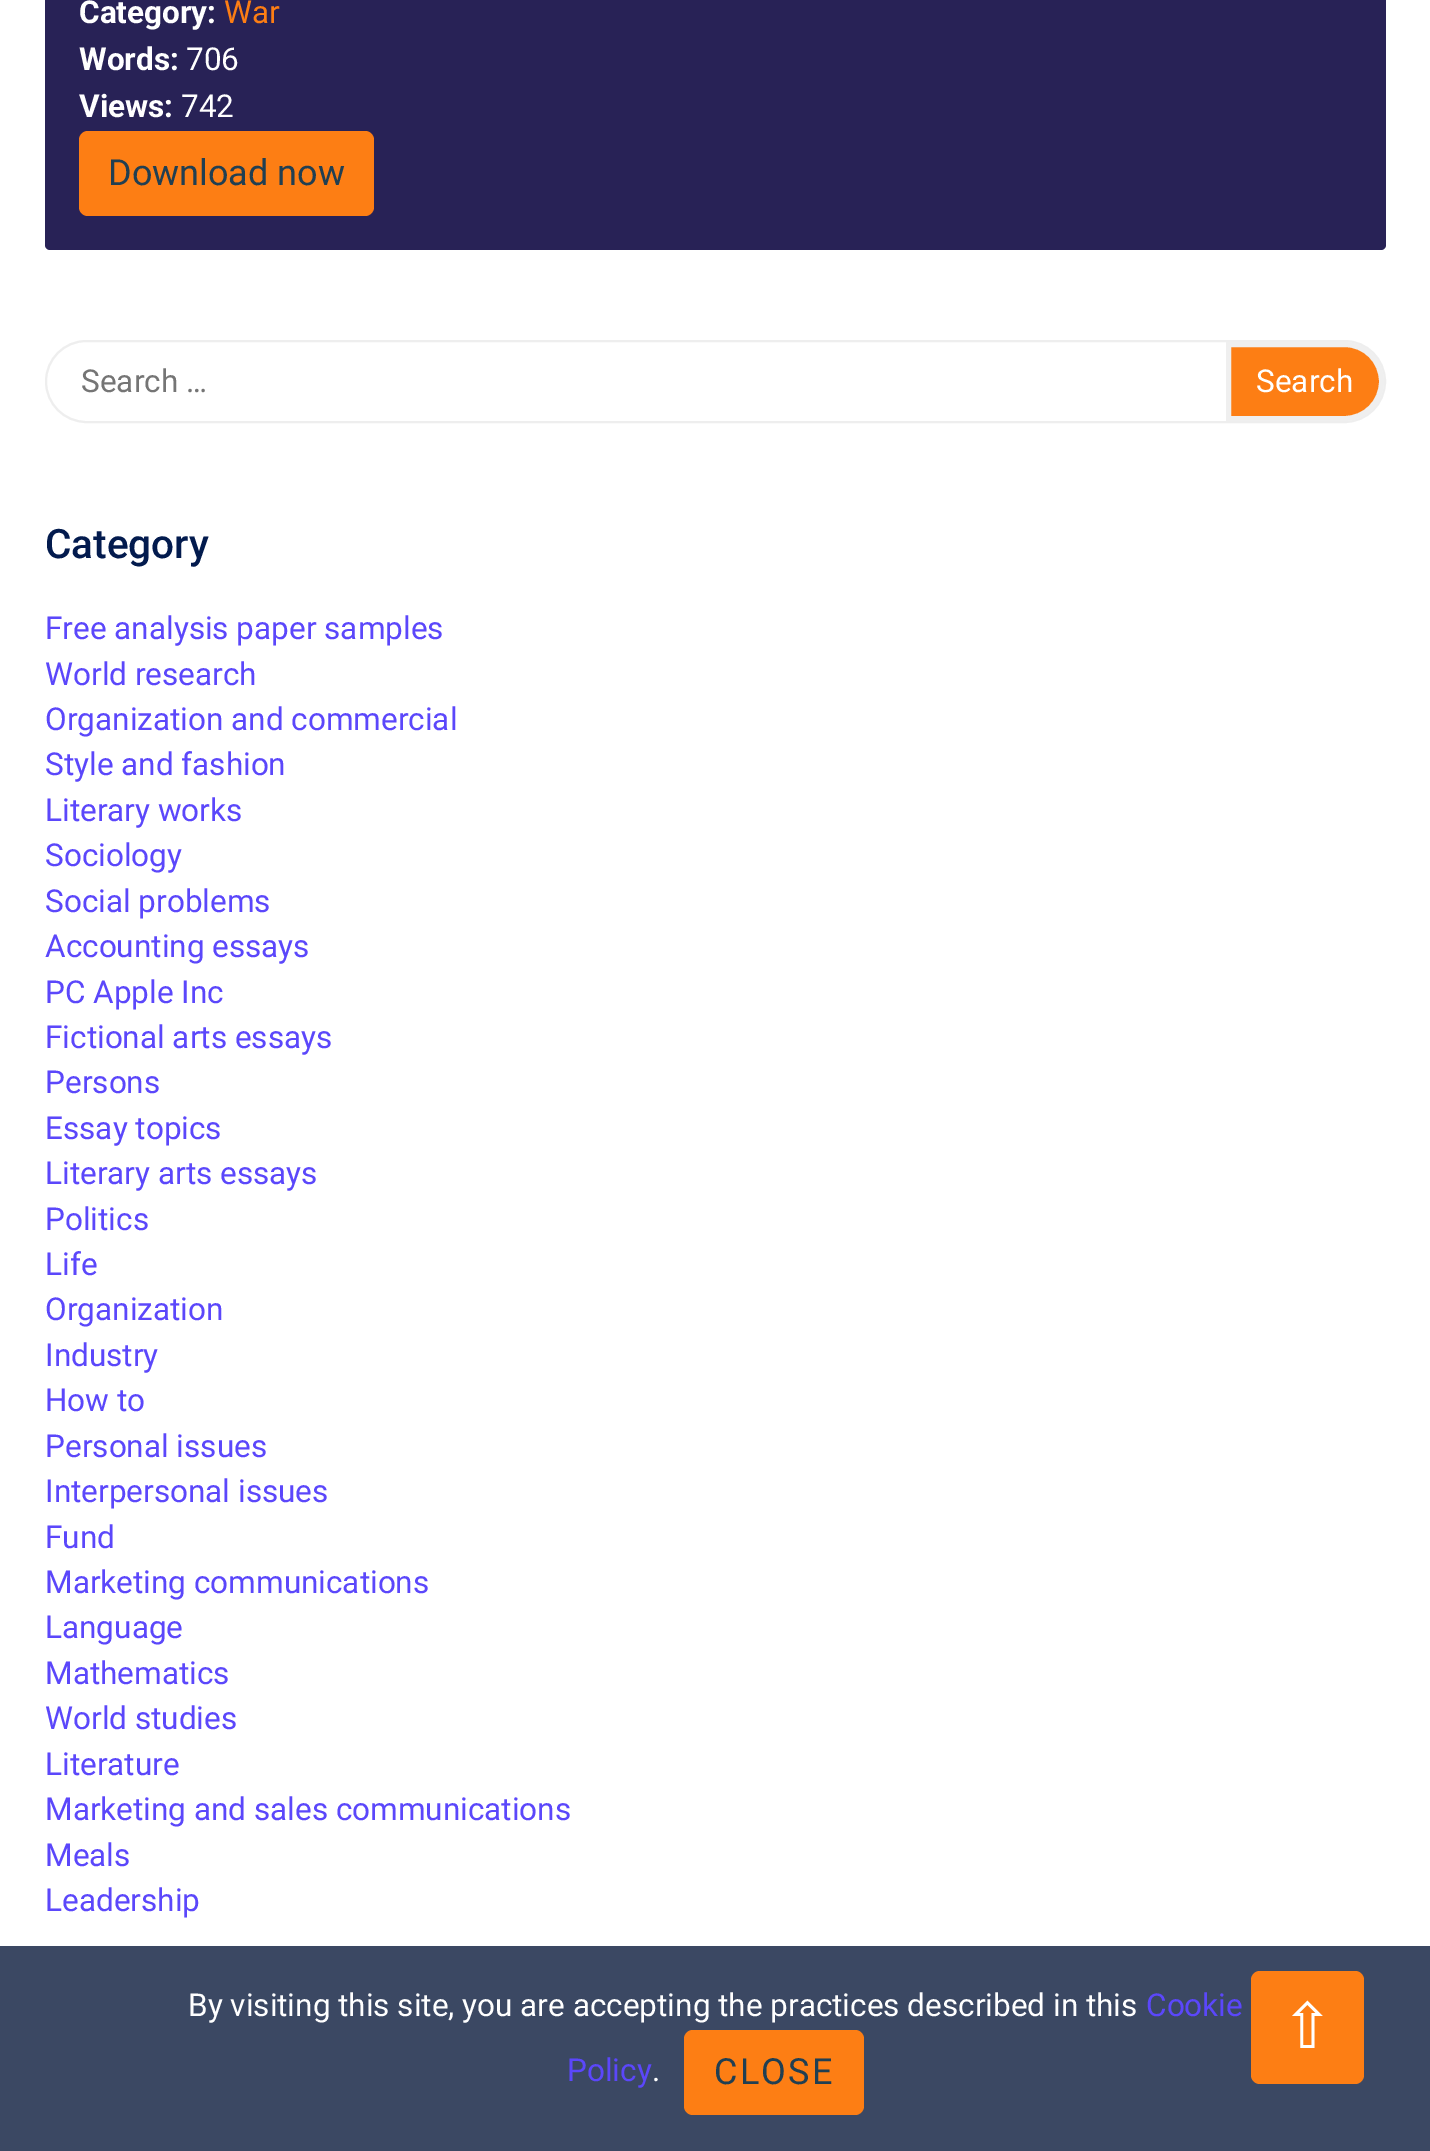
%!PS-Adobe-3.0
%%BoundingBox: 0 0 1430 2151
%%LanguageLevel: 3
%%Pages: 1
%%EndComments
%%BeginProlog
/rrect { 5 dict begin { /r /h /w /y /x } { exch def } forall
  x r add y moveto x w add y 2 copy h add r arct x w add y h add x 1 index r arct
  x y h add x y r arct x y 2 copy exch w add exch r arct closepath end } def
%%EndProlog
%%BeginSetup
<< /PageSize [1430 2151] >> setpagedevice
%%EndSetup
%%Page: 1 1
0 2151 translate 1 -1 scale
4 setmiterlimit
1 setgray
0 0 1430 2151 rectfill
0.157 0.133 0.337 setrgbcolor
45 -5 1341 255 5 rrect fill
0.992 0.494 0.078 setrgbcolor
79 131 295 85 9 rrect fill
0.933 setgray
2 setlinewidth
46 341 1339 81 40.5 rrect stroke
0.992 0.494 0.078 setrgbcolor
newpath 1228.5 344.5 moveto 1344.5 344.5 lineto 1365 344.5 1381.5 361 1381.5 381.5 curveto 1381.5 402 1365 418.5 1344.5 418.5 curveto 1228.5 418.5 lineto closepath gsave fill grestore
0.937 setgray
5 setlinewidth
stroke
0.231 0.282 0.388 setrgbcolor
0 1946 1430 205 rectfill
0.992 0.494 0.078 setrgbcolor
684 2030 180 85 9 rrect fill
1251 1971 113 113 9 rrect fill
/Roboto-Bold [31.5 0 0 -31.5 0 0] selectfont
1 setgray
79 23 moveto (Category:) show
/Roboto-Regular [31.5 0 0 -31.5 0 0] selectfont
0.992 0.494 0.078 setrgbcolor
224 23 moveto (War) show
/Roboto-Bold [31.5 0 0 -31.5 0 0] selectfont
1 setgray
79 70 moveto (Words:) show
/Roboto-Regular [31.5 0 0 -31.5 0 0] selectfont
186 70 moveto (706) show
/Roboto-Bold [31.5 0 0 -31.5 0 0] selectfont
79 117 moveto (Views:) show
/Roboto-Regular [31.5 0 0 -31.5 0 0] selectfont
181 117 moveto (742) show
/Roboto-Regular [36 0 0 -36 0 0] selectfont
0.129 0.247 0.322 setrgbcolor
108 185 moveto (Download now) show
/Roboto-Regular [31.5 0 0 -31.5 0 0] selectfont
0.459 setgray
81 392 moveto (Search …) show
1 setgray
1256 392 moveto (Search) show
/Roboto-Medium [40.5 0 0 -40.5 0 0] selectfont
0.012 0.106 0.306 setrgbcolor
45 558 moveto (Category) show
/Roboto-Regular [31.5 0 0 -31.5 0 0] selectfont
0.357 0.278 0.984 setrgbcolor
45 639 moveto (Free analysis paper samples) show
45 685 moveto (World research) show
45 730 moveto (Organization and commercial) show
45 775 moveto (Style and fashion) show
45 821 moveto (Literary works) show
45 866 moveto (Sociology) show
45 912 moveto (Social problems) show
45 957 moveto (Accounting essays) show
45 1003 moveto (PC Apple Inc) show
45 1048 moveto (Fictional arts essays) show
45 1093 moveto (Persons) show
45 1139 moveto (Essay topics) show
45 1184 moveto (Literary arts essays) show
45 1230 moveto (Politics) show
45 1275 moveto (Life) show
45 1320 moveto (Organization) show
45 1366 moveto (Industry) show
45 1411 moveto (How to) show
45 1457 moveto (Personal issues) show
45 1502 moveto (Interpersonal issues) show
45 1548 moveto (Fund) show
45 1593 moveto (Marketing communications) show
45 1638 moveto (Language) show
45 1684 moveto (Mathematics) show
45 1729 moveto (World studies) show
45 1775 moveto (Literature) show
45 1820 moveto (Marketing and sales communications) show
45 1866 moveto (Meals) show
45 1911 moveto (Leadership) show
1 setgray
188 2016 moveto (By visiting this site, you are accepting the practices described in this) show
0.357 0.278 0.984 setrgbcolor
1146 2016 moveto (Cookie) show
567 2081 moveto (Policy) show
1 setgray
652 2081 moveto (.) show
/Roboto-Regular [36 0 0 -36 0 0] selectfont
0.129 0.247 0.322 setrgbcolor
714 2084 moveto 2.25 0 (CLOSE) ashow
/DejaVuSans-Regular [63 0 0 -63 0 0] selectfont
1 setgray
1281 2048 moveto (⇧) show
showpage
%%EOF
